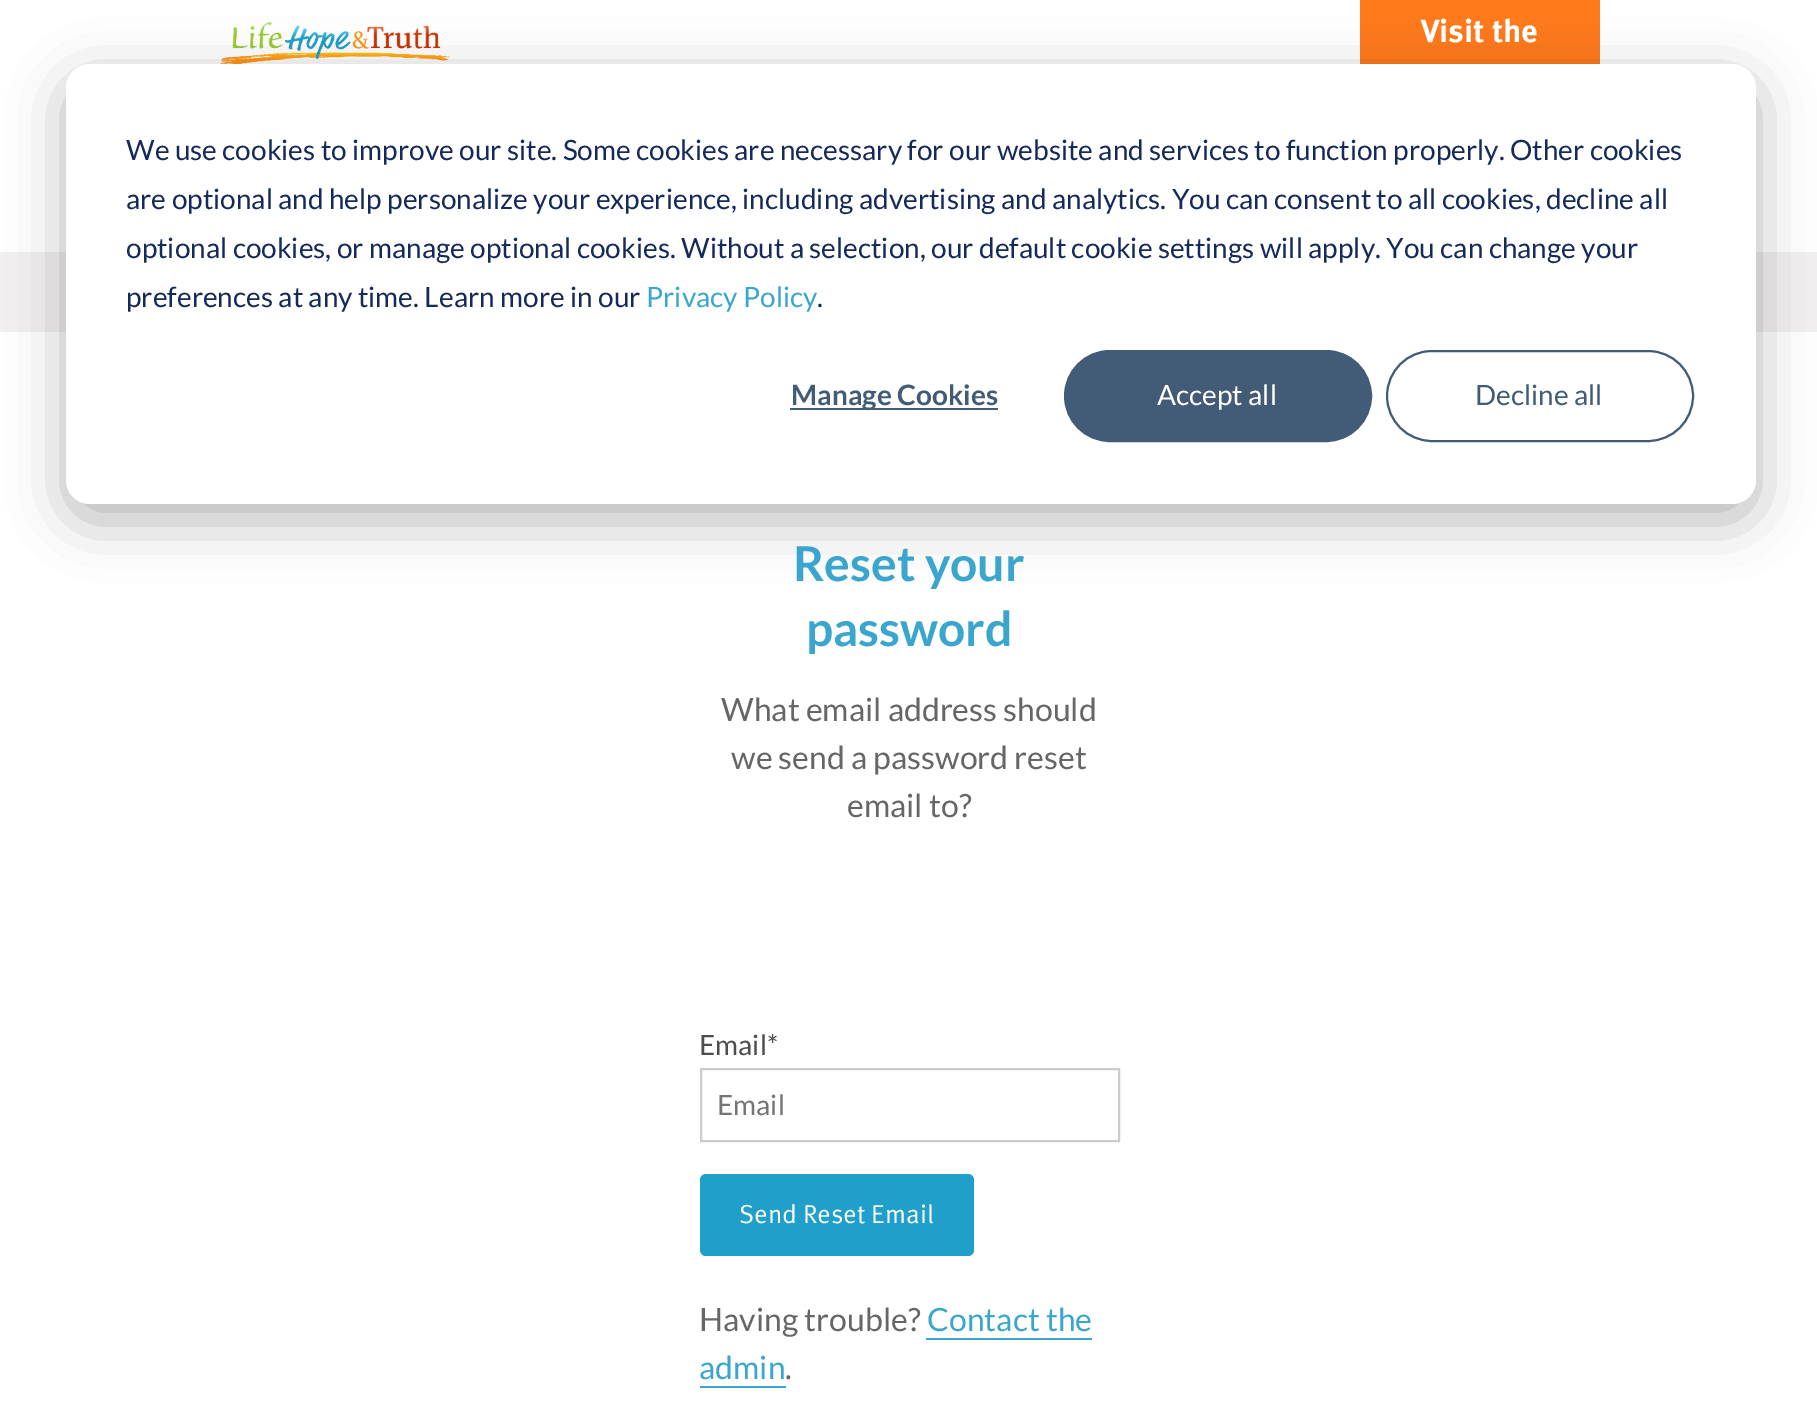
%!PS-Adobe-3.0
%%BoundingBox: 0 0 1817 1402
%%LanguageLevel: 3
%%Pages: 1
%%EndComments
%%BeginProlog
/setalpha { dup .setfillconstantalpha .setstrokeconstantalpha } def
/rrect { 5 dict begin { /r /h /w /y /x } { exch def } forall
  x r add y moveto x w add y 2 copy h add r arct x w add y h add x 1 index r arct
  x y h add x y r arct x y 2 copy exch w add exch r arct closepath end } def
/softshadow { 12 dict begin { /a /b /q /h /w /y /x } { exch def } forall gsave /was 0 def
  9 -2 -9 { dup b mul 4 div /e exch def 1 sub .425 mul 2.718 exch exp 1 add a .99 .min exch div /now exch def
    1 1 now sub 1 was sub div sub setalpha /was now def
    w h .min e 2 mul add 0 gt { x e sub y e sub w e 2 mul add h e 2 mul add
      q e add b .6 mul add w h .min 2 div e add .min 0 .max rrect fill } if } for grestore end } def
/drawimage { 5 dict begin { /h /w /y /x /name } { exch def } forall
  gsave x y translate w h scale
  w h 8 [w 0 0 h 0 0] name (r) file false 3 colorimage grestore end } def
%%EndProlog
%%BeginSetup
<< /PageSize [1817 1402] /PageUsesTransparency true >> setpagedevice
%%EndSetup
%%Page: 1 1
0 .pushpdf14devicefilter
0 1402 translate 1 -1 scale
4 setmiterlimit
1 setgray
0 0 1817 1402 rectfill
(images/1.raw) 220 22 230 42 drawimage
1 0.478 0.106 setrgbcolor
1360 0 240 64 rectfill
0.949 0.941 0.941 setrgbcolor
0 252 1817 80 rectfill
0 setgray
66 80 1690 440 24 28 0.28 softshadow
1 setgray
66 64 1690 440 24 rrect fill
0.259 0.357 0.463 setrgbcolor
790 408 208 2 rectfill
1065 351 306 90 45 rrect gsave fill grestore
2 setlinewidth
stroke
1387 351 306 90 45 rrect stroke
0.8 setgray
701 1069 418 72 rectstroke
0.122 0.624 0.788 setrgbcolor
700 1174 274 82 6 rrect fill
0.227 0.651 0.808 setrgbcolor
926 1338 166 2 rectfill
700 1386 86 2 rectfill
/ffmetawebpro-Bold [32 0 0 -32 0 0] selectfont
1 setgray
1421 42 moveto (Visit the) show
/Lato-Regular [28 0 0 -28 0 0] selectfont
0.082 0.161 0.353 setrgbcolor
126 160 moveto (We use cookies to improve our site. Some cookies are necessary for our website and services to function properly. Other cookies) show
126 209 moveto (are optional and help personalize your experience, including advertising and analytics. You can consent to all cookies, decline all) show
126 258 moveto (optional cookies, or manage optional cookies. Without a selection, our default cookie settings will apply. You can change your) show
126 307 moveto (preferences at any time. Learn more in our) show
0.227 0.651 0.808 setrgbcolor
646 307 moveto (Privacy Policy) show
0.082 0.161 0.353 setrgbcolor
817 307 moveto (.) show
/Lato-Bold [28 0 0 -28 0 0] selectfont
0.259 0.357 0.463 setrgbcolor
791 405 moveto (Manage Cookies) show
/Lato-Regular [28 0 0 -28 0 0] selectfont
1 setgray
1157 405 moveto (Accept all) show
0.259 0.357 0.463 setrgbcolor
1475 405 moveto (Decline all) show
/Lato-Bold [48 0 0 -48 0 0] selectfont
0.227 0.651 0.808 setrgbcolor
793 581 moveto (Reset your) show
806 646 moveto (password) show
/Lato-Regular [32 0 0 -32 0 0] selectfont
0.4 setgray
721 721 moveto (What email address should) show
731 769 moveto (we send a password reset) show
847 817 moveto (email to?) show
/Lato-Regular [28 0 0 -28 0 0] selectfont
0.302 setgray
699 1055 moveto (Email*) show
0.459 setgray
717 1115 moveto (Email) show
/ffmetawebpro-Regular [26 0 0 -26 0 0] selectfont
1 setgray
739 1223 moveto (Send Reset Email) show
/Lato-Regular [32 0 0 -32 0 0] selectfont
0.4 setgray
699 1331 moveto (Having trouble?) show
0.227 0.651 0.808 setrgbcolor
927 1331 moveto (Contact the) show
699 1379 moveto (admin) show
0.4 setgray
785 1379 moveto (.) show
.poppdf14devicefilter showpage
%%EOF
